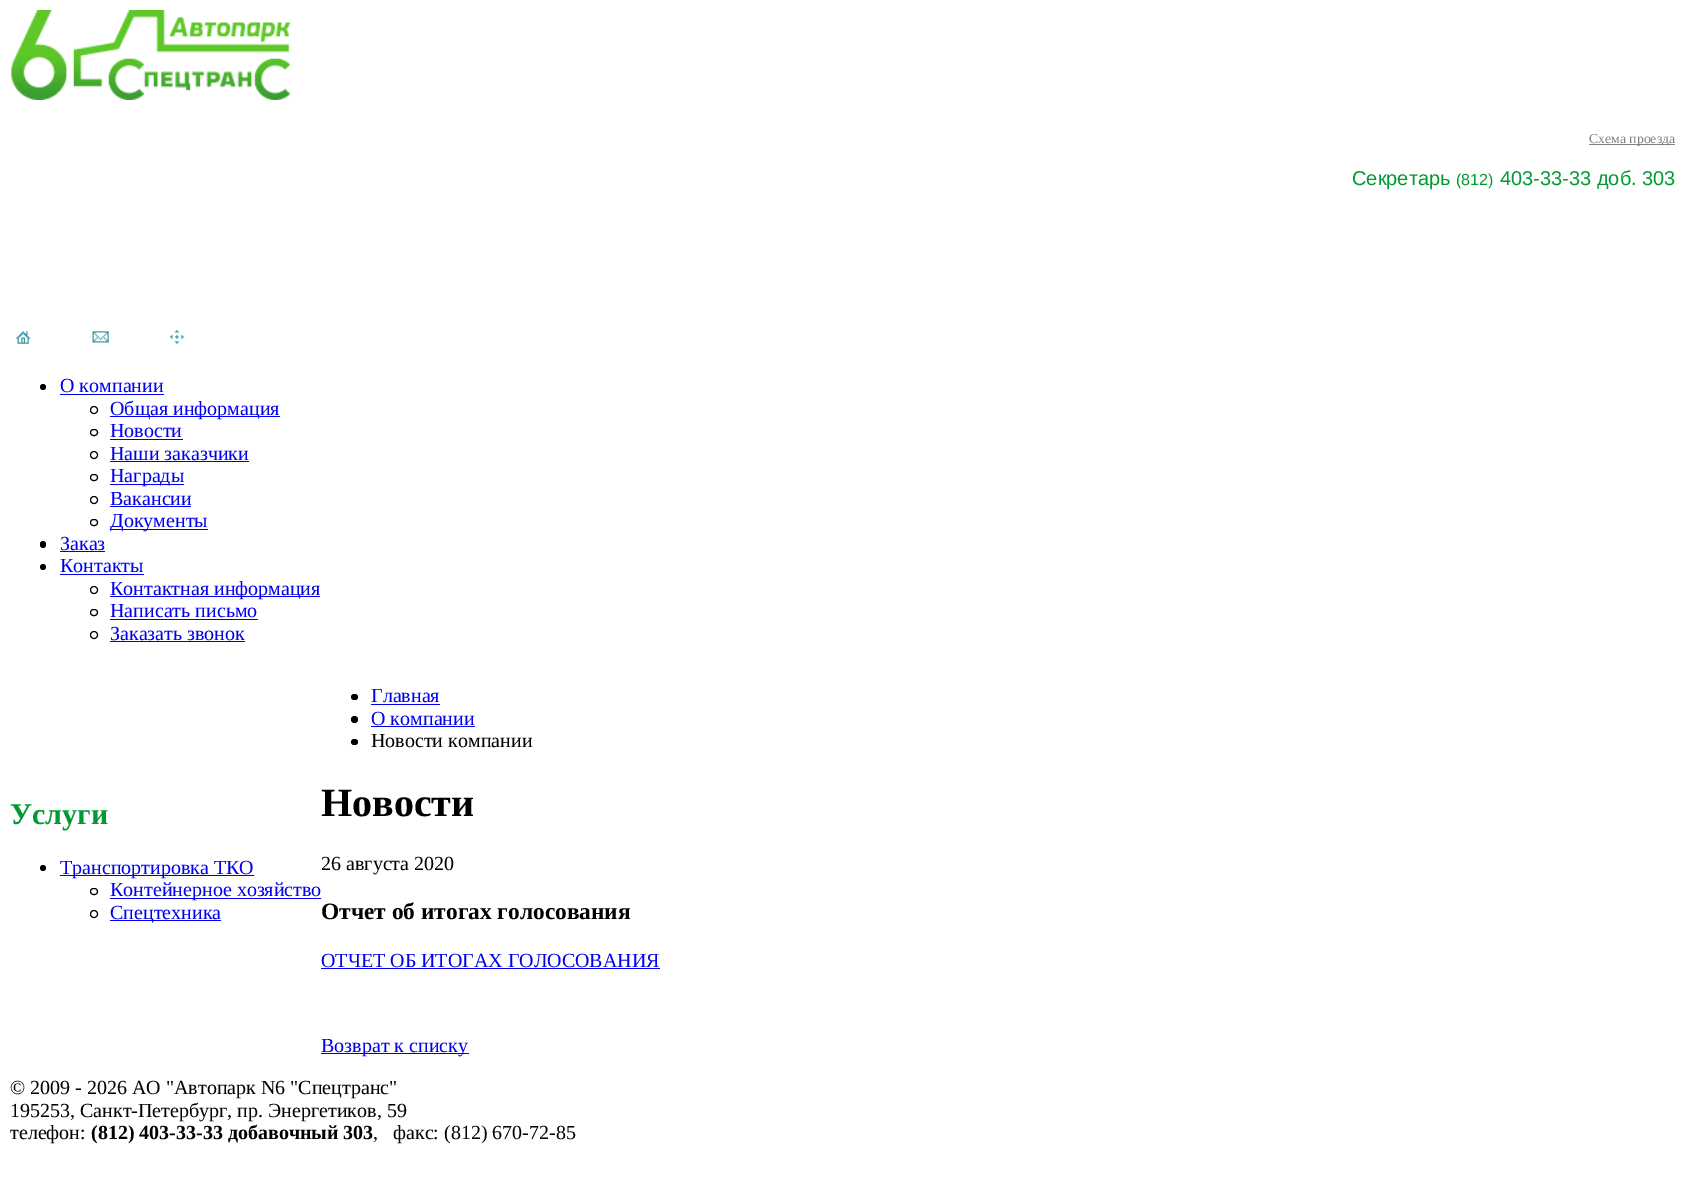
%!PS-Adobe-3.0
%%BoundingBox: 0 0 1684 1177
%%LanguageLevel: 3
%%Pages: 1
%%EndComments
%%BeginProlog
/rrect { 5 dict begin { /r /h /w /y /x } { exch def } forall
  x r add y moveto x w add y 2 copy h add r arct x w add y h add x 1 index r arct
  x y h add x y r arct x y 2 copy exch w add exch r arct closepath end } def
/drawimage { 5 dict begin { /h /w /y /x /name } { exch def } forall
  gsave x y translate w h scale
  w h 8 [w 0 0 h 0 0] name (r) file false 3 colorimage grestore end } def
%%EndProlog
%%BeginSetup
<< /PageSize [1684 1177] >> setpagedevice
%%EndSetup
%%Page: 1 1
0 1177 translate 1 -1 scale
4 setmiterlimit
1 setgray
0 0 1684 1177 rectfill
(images/1.raw) 11 10 280 90 drawimage
0.506 setgray
1589 144 86 1 rectfill
(images/2.raw) 16 331 15 13 drawimage
(images/3.raw) 92 331 17 12 drawimage
(images/4.raw) 169 329 15 15 drawimage
0 setgray
newpath 43 387 3 0 360 arc closepath fill
0 0 0.933 setrgbcolor
60 394 104 1 rectfill
0 setgray
newpath 94 410 3.5 0 360 arc closepath stroke
0 0 0.933 setrgbcolor
110 416 170 1 rectfill
0 setgray
90.5 429.5 7 6 3 rrect stroke
0 0 0.933 setrgbcolor
110 439 73 1 rectfill
0 setgray
newpath 94 455 3.5 0 360 arc closepath stroke
0 0 0.933 setrgbcolor
110 461 139 1 rectfill
0 setgray
90.5 474.5 7 6 3 rrect stroke
0 0 0.933 setrgbcolor
110 484 74 1 rectfill
0 setgray
newpath 94 500 3.5 0 360 arc closepath stroke
0 0 0.933 setrgbcolor
110 506 81 1 rectfill
0 setgray
90.5 519.5 7 6 3 rrect stroke
0 0 0.933 setrgbcolor
110 529 98 1 rectfill
0 setgray
40 541 6 7 3 rrect fill
0 0 0.933 setrgbcolor
60 551 45 1 rectfill
0 setgray
newpath 43 567 3 0 360 arc closepath fill
0 0 0.933 setrgbcolor
60 574 84 1 rectfill
0 setgray
newpath 94 590 3.5 0 360 arc closepath stroke
0 0 0.933 setrgbcolor
110 596 210 1 rectfill
0 setgray
90.5 609.5 7 6 3 rrect stroke
0 0 0.933 setrgbcolor
110 619 148 1 rectfill
0 setgray
newpath 94 635 3.5 0 360 arc closepath stroke
0 0 0.933 setrgbcolor
110 641 135 1 rectfill
0 setgray
newpath 43 868 3 0 360 arc closepath fill
0 0 0.933 setrgbcolor
60 875 194 1 rectfill
0 setgray
90.5 888.5 7 6 3 rrect stroke
0 0 0.933 setrgbcolor
110 898 211 1 rectfill
0 setgray
newpath 94 914 3.5 0 360 arc closepath stroke
0 0 0.933 setrgbcolor
110 920 111 1 rectfill
0 setgray
351 694 7 6 3 rrect fill
0 0 0.933 setrgbcolor
371 704 69 1 rectfill
0 setgray
newpath 354.5 719.5 3.5 0 360 arc closepath fill
0 0 0.933 setrgbcolor
371 726 104 1 rectfill
0 setgray
351 739 7 6 3 rrect fill
0 0 0.933 setrgbcolor
321 968 339 1 rectfill
321 1053 148 1 rectfill
/LiberationSerif-Regular [13.75 0 0 -13.75 0 0] selectfont
0.506 setgray
1589 143 moveto (Cхема проезда) show
/LiberationSans-Regular [20 0 0 -20 0 0] selectfont
0 0.6 0.2 setrgbcolor
1352 185 moveto (Секретарь) show
/LiberationSans-Regular [16 0 0 -16 0 0] selectfont
1456 185 moveto (\(812\)) show
/LiberationSans-Regular [20 0 0 -20 0 0] selectfont
1500 185 moveto (403-33-33 доб. 303) show
/LiberationSerif-Regular [20 0 0 -20 0 0] selectfont
0 0 0.933 setrgbcolor
60 392 moveto (О компании) show
110 415 moveto (Общая информация) show
110 437 moveto (Новости) show
110 460 moveto (Наши заказчики) show
110 482 moveto (Награды) show
110 505 moveto (Вакансии) show
110 527 moveto (Документы) show
60 550 moveto (Заказ) show
60 572 moveto (Контакты) show
110 595 moveto (Контактная информация) show
110 617 moveto (Написать письмо) show
110 640 moveto (Заказать звонок) show
/LiberationSerif-Bold [30 0 0 -30 0 0] selectfont
0 0.6 0.2 setrgbcolor
10 824 moveto (Услуги) show
/LiberationSerif-Regular [20 0 0 -20 0 0] selectfont
0 0 0.933 setrgbcolor
60 874 moveto (Транспортировка ТКО) show
110 896 moveto (Контейнерное хозяйство) show
110 919 moveto (Спецтехника) show
371 702 moveto (Главная) show
371 725 moveto (О компании) show
0 setgray
371 747 moveto (Новости компании) show
/LiberationSerif-Bold [40 0 0 -40 0 0] selectfont
321 816 moveto (Новости) show
/LiberationSerif-Regular [20 0 0 -20 0 0] selectfont
321 870 moveto (26 августа 2020) show
/LiberationSerif-Bold [23.4 0 0 -23.4 0 0] selectfont
321 919 moveto (Отчет об итогах голосования) show
/LiberationSerif-Regular [20 0 0 -20 0 0] selectfont
0 0 0.933 setrgbcolor
321 967 moveto (ОТЧЕТ ОБ ИТОГАХ ГОЛОСОВАНИЯ) show
321 1052 moveto (Возврат к списку) show
0 setgray
10 1094 moveto (© 2009 - 2026 АО "Автопарк N6 "Спецтранс") show
10 1117 moveto (195253, Санкт-Петербург, пр. Энергетиков, 59) show
10 1139 moveto (телефон:) show
/LiberationSerif-Bold [20 0 0 -20 0 0] selectfont
91 1139 moveto (\(812\) 403-33-33 добавочный 303) show
/LiberationSerif-Regular [20 0 0 -20 0 0] selectfont
373 1139 moveto (,   факс: \(812\) 670-72-85) show
showpage
%%EOF
